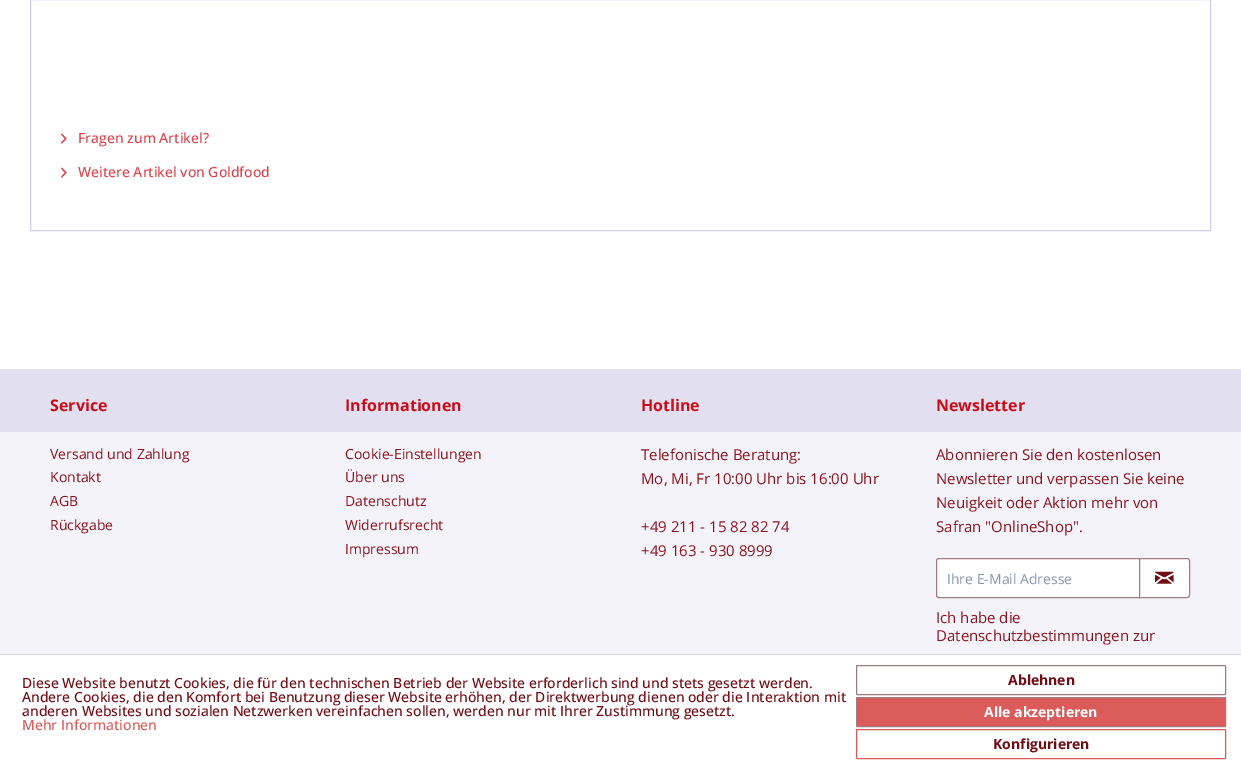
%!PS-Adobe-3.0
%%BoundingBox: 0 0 1241 775
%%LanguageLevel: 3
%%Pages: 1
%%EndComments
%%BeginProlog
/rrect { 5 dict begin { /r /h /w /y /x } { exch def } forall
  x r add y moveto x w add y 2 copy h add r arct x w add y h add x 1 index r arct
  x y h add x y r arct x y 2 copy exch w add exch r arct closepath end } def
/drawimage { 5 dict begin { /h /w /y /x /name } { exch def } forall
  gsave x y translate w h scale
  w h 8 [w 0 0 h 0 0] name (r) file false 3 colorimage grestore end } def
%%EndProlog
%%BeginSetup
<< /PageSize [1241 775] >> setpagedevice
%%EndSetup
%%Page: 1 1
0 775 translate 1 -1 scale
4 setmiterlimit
1 setgray
0 0 1241 775 rectfill
0.831 0.8 0.957 setrgbcolor
30.5 -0.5 1180 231 rectstroke
(images/1.raw) 61 133 6 11 drawimage
(images/1.raw) 61 167 6 11 drawimage
0.957 0.953 0.98 setrgbcolor
0 432 1241 222 rectfill
0.886 0.875 0.945 setrgbcolor
0 369 1241 63 rectfill
1 setgray
newpath 939 558.5 moveto 1139.5 558.5 lineto 1139.5 597.5 lineto 939 597.5 lineto 937.5 597.5 936.5 596.5 936.5 595 curveto 936.5 561 lineto 936.5 559.5 937.5 558.5 939 558.5 curveto closepath gsave fill grestore
0.627 0.49 0.502 setrgbcolor
stroke
1 setgray
newpath 1139.5 558.5 moveto 1187 558.5 lineto 1188.5 558.5 1189.5 559.5 1189.5 561 curveto 1189.5 595 lineto 1189.5 596.5 1188.5 597.5 1187 597.5 curveto 1139.5 597.5 lineto closepath gsave fill grestore
0.627 0.49 0.502 setrgbcolor
stroke
(images/2.raw) 1155 571 19 13 drawimage
0.855 0.855 0.898 setrgbcolor
0 654 1241 1 rectfill
0.627 0.49 0.502 setrgbcolor
856.5 665.5 369 29 0.5 rrect stroke
0.855 0.357 0.353 setrgbcolor
856.5 697.5 369 29 0.5 rrect gsave fill grestore
0.627 0.49 0.502 setrgbcolor
stroke
0.855 0.357 0.357 setrgbcolor
856.5 729.5 369 29 0.5 rrect stroke
/OpenSans-Medium [14 0 0 -14 0 0] selectfont
0.855 0.267 0.306 setrgbcolor
78 143 moveto (Fragen zum Artikel?) show
78 177 moveto (Weitere Artikel von Goldfood) show
/OpenSans-Bold [16 0 0 -16 0 0] selectfont
0.792 0.047 0.098 setrgbcolor
50 411 moveto (Service) show
/OpenSans-Regular [14 0 0 -14 0 0] selectfont
0.549 0.075 0.106 setrgbcolor
50 459 moveto (Versand und Zahlung) show
50 482 moveto (Kontakt) show
50 506 moveto (AGB) show
50 530 moveto (Rückgabe) show
/OpenSans-Bold [16 0 0 -16 0 0] selectfont
0.792 0.047 0.098 setrgbcolor
345 411 moveto (Informationen) show
/OpenSans-Regular [14 0 0 -14 0 0] selectfont
0.549 0.075 0.106 setrgbcolor
345 459 moveto (Cookie-Einstellungen) show
345 482 moveto (Über uns) show
345 506 moveto (Datenschutz) show
345 530 moveto (Widerrufsrecht) show
345 554 moveto (Impressum) show
/OpenSans-Bold [16 0 0 -16 0 0] selectfont
0.792 0.047 0.098 setrgbcolor
641 411 moveto (Hotline) show
/OpenSans-Regular [15 0 0 -15 0 0] selectfont
0.549 0.075 0.106 setrgbcolor
641 460 moveto (Telefonische Beratung:) show
641 484 moveto (Mo, Mi, Fr 10:00 Uhr bis 16:00 Uhr) show
641 532 moveto (+49 211 - 15 82 82 74) show
641 556 moveto (+49 163 - 930 8999) show
/OpenSans-Bold [16 0 0 -16 0 0] selectfont
0.792 0.047 0.098 setrgbcolor
936 411 moveto (Newsletter) show
/OpenSans-Regular [15 0 0 -15 0 0] selectfont
0.549 0.075 0.106 setrgbcolor
936 460 moveto (Abonnieren Sie den kostenlosen) show
936 484 moveto (Newsletter und verpassen Sie keine) show
936 508 moveto (Neuigkeit oder Aktion mehr von) show
936 532 moveto (Safran "OnlineShop".) show
/OpenSans-Regular [14 0 0 -14 0 0] selectfont
0.529 0.596 0.663 setrgbcolor
947 584 moveto (Ihre E-Mail Adresse) show
/OpenSans-Regular [15 0 0 -15 0 0] selectfont
0.549 0.075 0.106 setrgbcolor
936 623 moveto (Ich habe die) show
936 641 moveto (Datenschutzbestimmungen zur) show
/OpenSans-Medium [14 0 0 -14 0 0] selectfont
0.439 0.047 0.078 setrgbcolor
22 688 moveto (Diese Website benutzt Cookies, die für den technischen Betrieb der Website erforderlich sind und stets gesetzt werden.) show
22 702 moveto (Andere Cookies, die den Komfort bei Benutzung dieser Website erhöhen, der Direktwerbung dienen oder die Interaktion mit) show
22 716 moveto (anderen Websites und sozialen Netzwerken vereinfachen sollen, werden nur mit Ihrer Zustimmung gesetzt.) show
0.855 0.357 0.357 setrgbcolor
22 730 moveto (Mehr Informationen) show
/OpenSans-Bold [14 0 0 -14 0 0] selectfont
0.439 0.047 0.078 setrgbcolor
1008 685 moveto (Ablehnen) show
1 setgray
984 717 moveto (Alle akzeptieren) show
0.439 0.047 0.078 setrgbcolor
993 749 moveto (Konfigurieren) show
showpage
%%EOF
